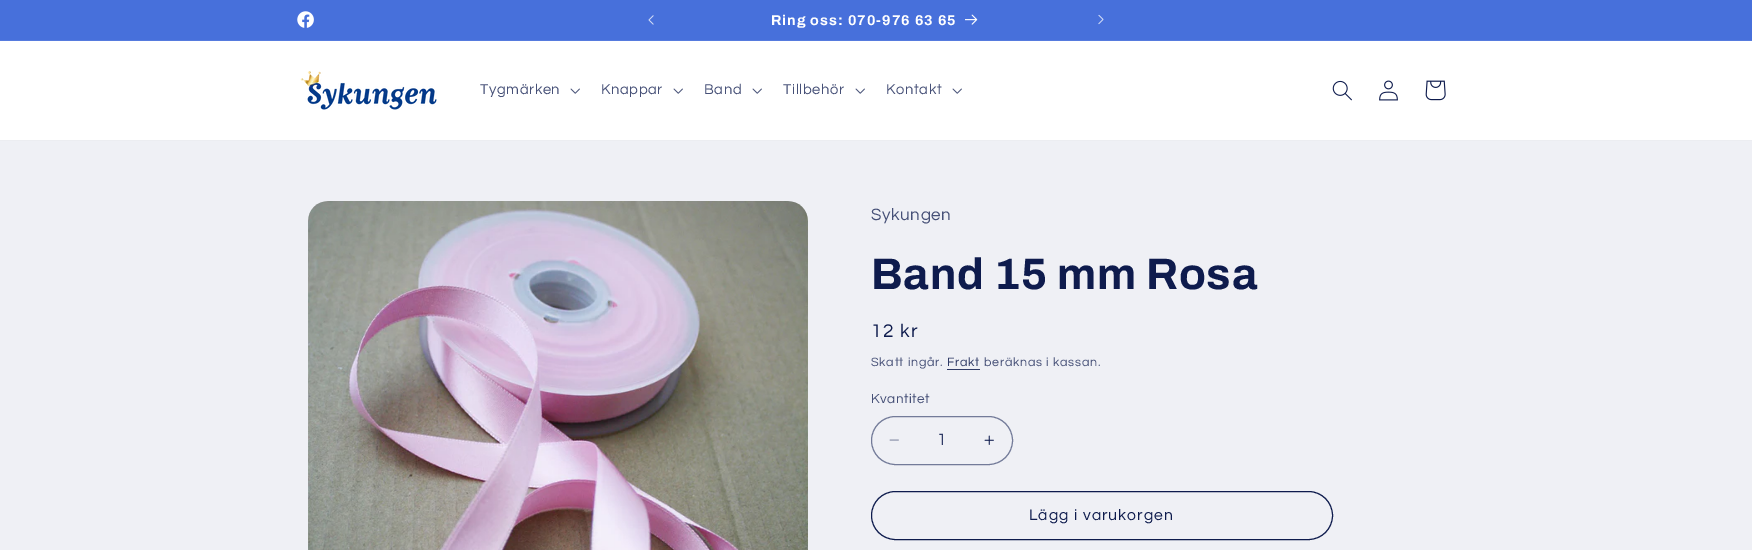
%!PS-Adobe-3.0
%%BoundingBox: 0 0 1752 550
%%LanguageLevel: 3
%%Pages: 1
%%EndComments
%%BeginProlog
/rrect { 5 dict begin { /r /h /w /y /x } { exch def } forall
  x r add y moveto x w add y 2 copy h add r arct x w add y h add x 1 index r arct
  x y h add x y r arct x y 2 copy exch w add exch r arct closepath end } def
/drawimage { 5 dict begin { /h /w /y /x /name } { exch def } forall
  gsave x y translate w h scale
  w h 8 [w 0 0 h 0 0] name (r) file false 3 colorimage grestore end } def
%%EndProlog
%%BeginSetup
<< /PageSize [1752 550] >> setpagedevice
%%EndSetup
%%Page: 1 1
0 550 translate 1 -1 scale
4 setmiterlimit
0.937 0.941 0.961 setrgbcolor
0 0 1752 550 rectfill
0.278 0.439 0.859 setrgbcolor
0 0 1752 40 rectfill
0.337 0.482 0.871 setrgbcolor
0 40 1752 1 rectfill
(images/1.raw) 297 11 17 17 drawimage
(images/2.raw) 648 15 6 10 drawimage
(images/3.raw) 965 14 13 11 drawimage
(images/4.raw) 1098 14 6 11 drawimage
1 setgray
0 41 1752 99 rectfill
0.925 0.929 0.945 setrgbcolor
0 140 1752 1 rectfill
(images/5.raw) 300 71 137 39 drawimage
(images/6.raw) 570 88 10 6 drawimage
(images/6.raw) 673 88 10 6 drawimage
(images/6.raw) 752 88 10 6 drawimage
(images/6.raw) 855 88 10 6 drawimage
(images/6.raw) 952 88 10 6 drawimage
(images/7.raw) 1332 80 20 21 drawimage
(images/8.raw) 1379 80 19 21 drawimage
(images/9.raw) 1425 80 21 21 drawimage
(images/10.raw) 308 201 500 349 drawimage
0.188 0.231 0.4 setrgbcolor
947 369 33 1 rectfill
(images/11.raw) 889 439 10 2 drawimage
(images/12.raw) 984 435 10 10 drawimage
0.451 0.482 0.6 setrgbcolor
871.5 416.5 141 48 24 rrect stroke
0.055 0.106 0.302 setrgbcolor
871.5 491.5 461 48 24 rrect stroke
/Archivo-Bold [14.25 0 0 -14.25 0 0] selectfont
1 setgray
771 25 moveto 1.05 0 (Ring oss: 070-976 63 65) ashow
/Questrial-Regular [14.75 0 0 -14.75 0 0] selectfont
0.275 0.314 0.467 setrgbcolor
480 94 moveto 0.6 0 (Tygmärken) ashow
601 94 moveto 0.6 0 (Knappar) ashow
704 94 moveto 0.6 0 (Band) ashow
783 94 moveto 0.6 0 (Tillbehör) ashow
886 94 moveto 0.6 0 (Kontakt) ashow
/Questrial-Regular [17 0 0 -17 0 0] selectfont
871 220 moveto 0.6 0 (Sykungen) ashow
/Archivo-Bold [44 0 0 -44 0 0] selectfont
0.055 0.106 0.302 setrgbcolor
871 289 moveto 0.7 0 (Band 15 mm Rosa) ashow
/Questrial-Regular [19 0 0 -19 0 0] selectfont
871 337 moveto 1.5 0 (12 kr) ashow
/Questrial-Regular [12.5 0 0 -12.5 0 0] selectfont
0.275 0.314 0.467 setrgbcolor
871 366 moveto 0.75 0 (Skatt ingår.) ashow
0.188 0.231 0.4 setrgbcolor
947 366 moveto 0.75 0 (Frakt) ashow
0.275 0.314 0.467 setrgbcolor
984 366 moveto 0.75 0 (beräknas i kassan.) ashow
/Questrial-Regular [13.5 0 0 -13.5 0 0] selectfont
871 403 moveto 0.5 0 (Kvantitet) ashow
/Questrial-Regular [17 0 0 -17 0 0] selectfont
0.188 0.231 0.4 setrgbcolor
937 445 moveto (1) show
/Questrial-Regular [15.75 0 0 -15.75 0 0] selectfont
0.055 0.106 0.302 setrgbcolor
1029 520 moveto 1.05 0 (Lägg i varukorgen) ashow
showpage
%%EOF
